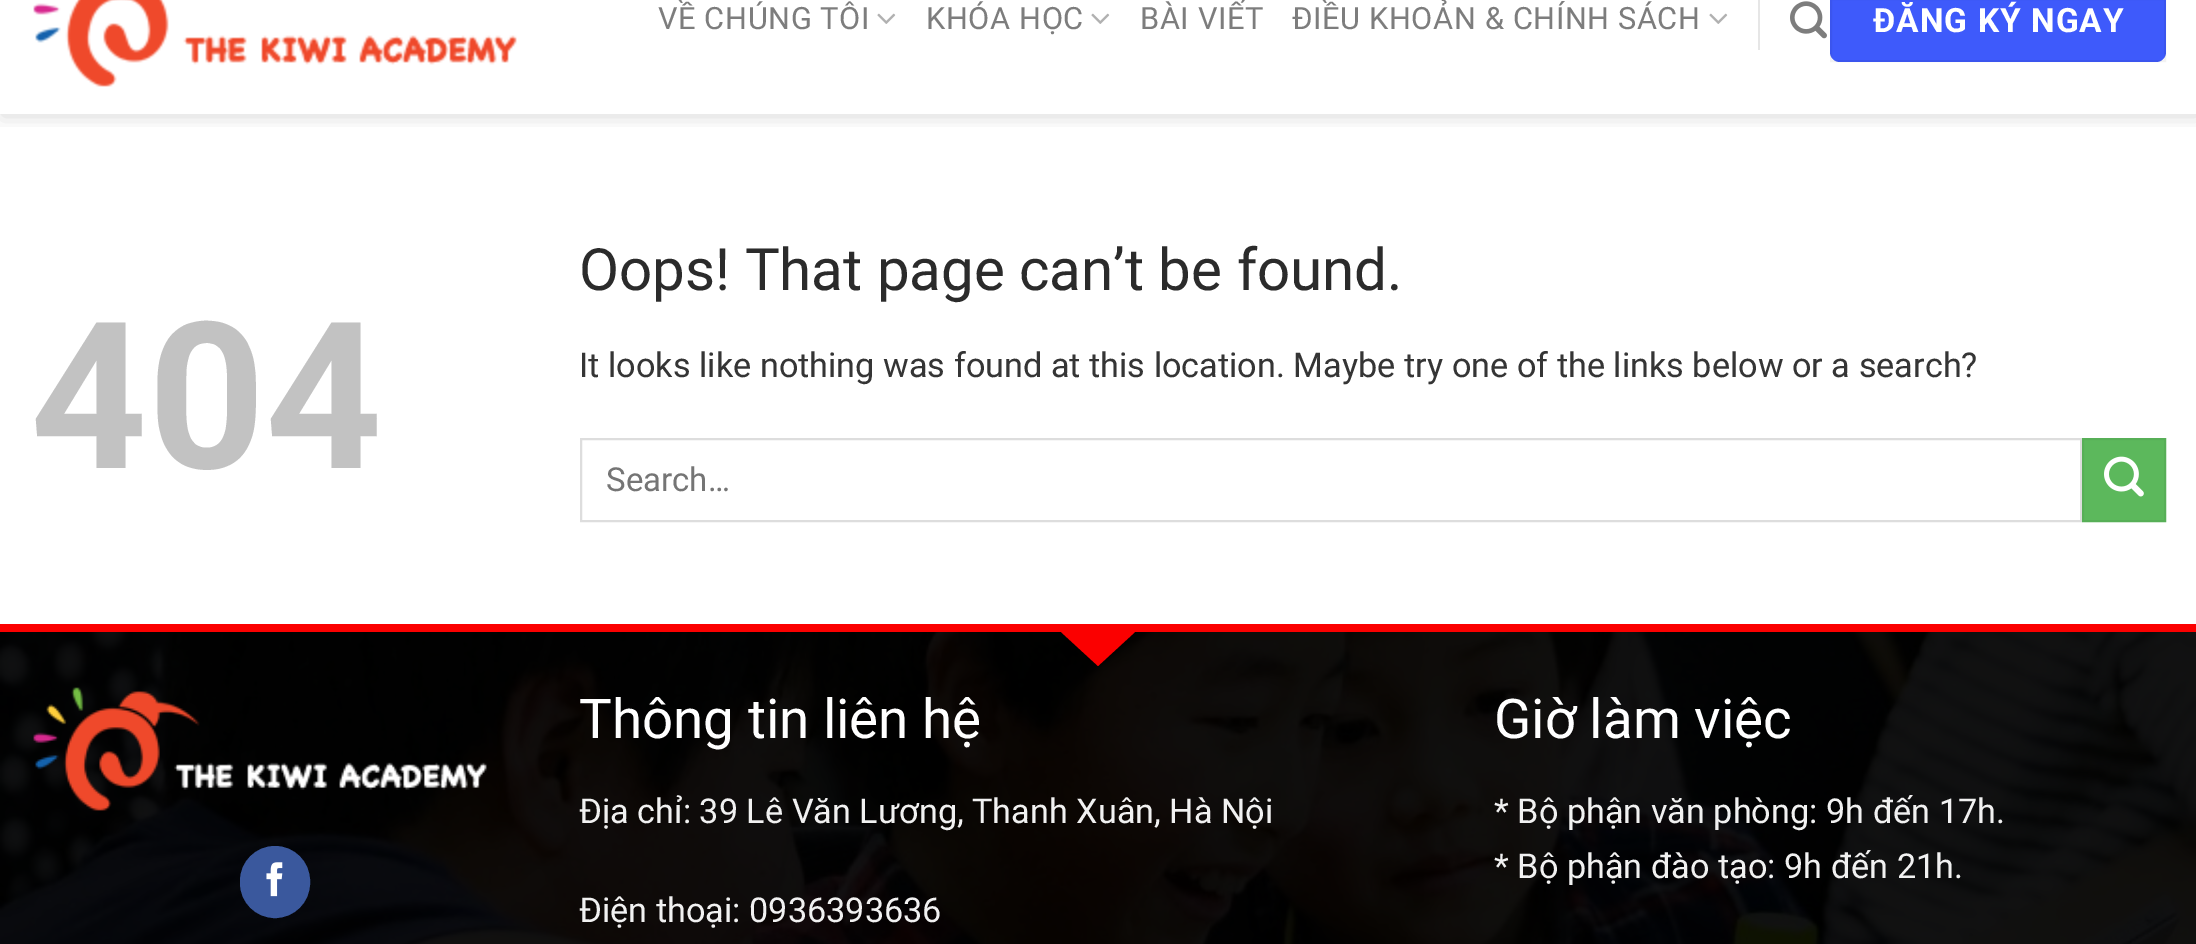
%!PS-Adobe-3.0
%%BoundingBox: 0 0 2196 944
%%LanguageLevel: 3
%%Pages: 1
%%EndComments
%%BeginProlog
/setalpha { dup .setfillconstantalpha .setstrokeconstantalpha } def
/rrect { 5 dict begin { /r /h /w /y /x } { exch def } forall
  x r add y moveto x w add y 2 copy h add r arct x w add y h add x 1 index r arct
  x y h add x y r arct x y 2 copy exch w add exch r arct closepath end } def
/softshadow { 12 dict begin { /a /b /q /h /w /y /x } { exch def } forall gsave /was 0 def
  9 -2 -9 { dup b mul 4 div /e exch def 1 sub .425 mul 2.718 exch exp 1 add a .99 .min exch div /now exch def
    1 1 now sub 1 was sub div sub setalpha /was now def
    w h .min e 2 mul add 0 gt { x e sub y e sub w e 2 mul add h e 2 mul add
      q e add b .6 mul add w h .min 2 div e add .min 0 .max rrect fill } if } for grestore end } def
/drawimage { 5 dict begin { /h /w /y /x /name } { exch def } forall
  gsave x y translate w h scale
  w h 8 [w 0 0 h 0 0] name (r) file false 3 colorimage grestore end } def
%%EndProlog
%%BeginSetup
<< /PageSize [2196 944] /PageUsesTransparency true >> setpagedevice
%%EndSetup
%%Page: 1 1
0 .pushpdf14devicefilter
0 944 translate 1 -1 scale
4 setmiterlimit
1 setgray
0 0 2196 944 rectfill
gsave
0 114 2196 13 rectclip
0 setgray
2 -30 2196 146 0 10 0.15 softshadow
grestore
(images/1.raw) 33 0 484 87 drawimage
(images/2.raw) 877 13 19 11 drawimage
(images/2.raw) 1091 13 19 11 drawimage
(images/2.raw) 1709 13 19 11 drawimage
0.902 setgray
1758 0 2 50 rectfill
(images/3.raw) 1790 1 37 38 drawimage
0.243 0.353 0.984 setrgbcolor
1830 -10 336 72 10 rrect fill
0.05 setalpha
0 setgray
2 setlinewidth
1831 -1 334 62 rectstroke
1 setalpha
0.867 setgray
581 439 1500 82 rectstroke
0.361 0.722 0.361 setrgbcolor
newpath 2083 439 moveto 2165 439 lineto 2165 521 lineto 2083 521 lineto closepath gsave fill grestore
0.341 0.686 0.341 setrgbcolor
stroke
(images/4.raw) 2104 456 40 41 drawimage
(images/5.raw) 0 632 2196 312 drawimage
0.984 0 0 setrgbcolor
newpath -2 624 moveto 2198 624 lineto 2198 632 lineto 1135 632 lineto 1098 666 lineto 1061 632 lineto -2 632 lineto closepath fill
(images/6.raw) 33 687 454 124 drawimage
0.227 0.345 0.616 setrgbcolor
241 847 68 70 34 rrect gsave fill grestore
stroke
(images/7.raw) 266 862 17 35 drawimage
/Roboto-Regular [30.75 0 0 -30.75 0 0] selectfont
0.49 setgray
658 29 moveto 0.6 0 (VỀ CHÚNG TÔI) ashow
926 29 moveto 0.6 0 (KHÓA HỌC) ashow
1140 29 moveto 0.6 0 (BÀI VIẾT) ashow
1292 29 moveto 0.6 0 (ĐIỀU KHOẢN & CHÍNH SÁCH) ashow
/Roboto-Bold [33.5 0 0 -33.5 0 0] selectfont
1 setgray
1873 32 moveto 1 0 (ĐĂNG KÝ NGAY) ashow
/Roboto-Bold [205 0 0 -205 0 0] selectfont
0.761 setgray
30 468 moveto (404) show
/Roboto-Regular [58.25 0 0 -58.25 0 0] selectfont
0.169 setgray
579 290 moveto (Oops! That page can’t be found.) show
/Roboto-Regular [34.25 0 0 -34.25 0 0] selectfont
0.208 setgray
579 377 moveto (It looks like nothing was found at this location. Maybe try one of the links below or a search?) show
/Roboto-Regular [33 0 0 -33 0 0] selectfont
0.459 setgray
606 491 moveto (Search…) show
/Roboto-Regular [54.75 0 0 -54.75 0 0] selectfont
1 setgray
579 738 moveto (Thông tin liên hệ) show
/Roboto-Regular [34.25 0 0 -34.25 0 0] selectfont
0.945 setgray
579 823 moveto (Địa chỉ: 39 Lê Văn Lương, Thanh Xuân, Hà Nội) show
579 922 moveto (Điện thoại: 0936393636) show
/Roboto-Regular [54.75 0 0 -54.75 0 0] selectfont
1 setgray
1494 738 moveto (Giờ làm việc) show
/Roboto-Regular [34.25 0 0 -34.25 0 0] selectfont
0.945 setgray
1494 823 moveto (* Bộ phận văn phòng: 9h đến 17h.) show
1494 878 moveto (* Bộ phận đào tạo: 9h đến 21h.) show
.poppdf14devicefilter showpage
%%EOF
